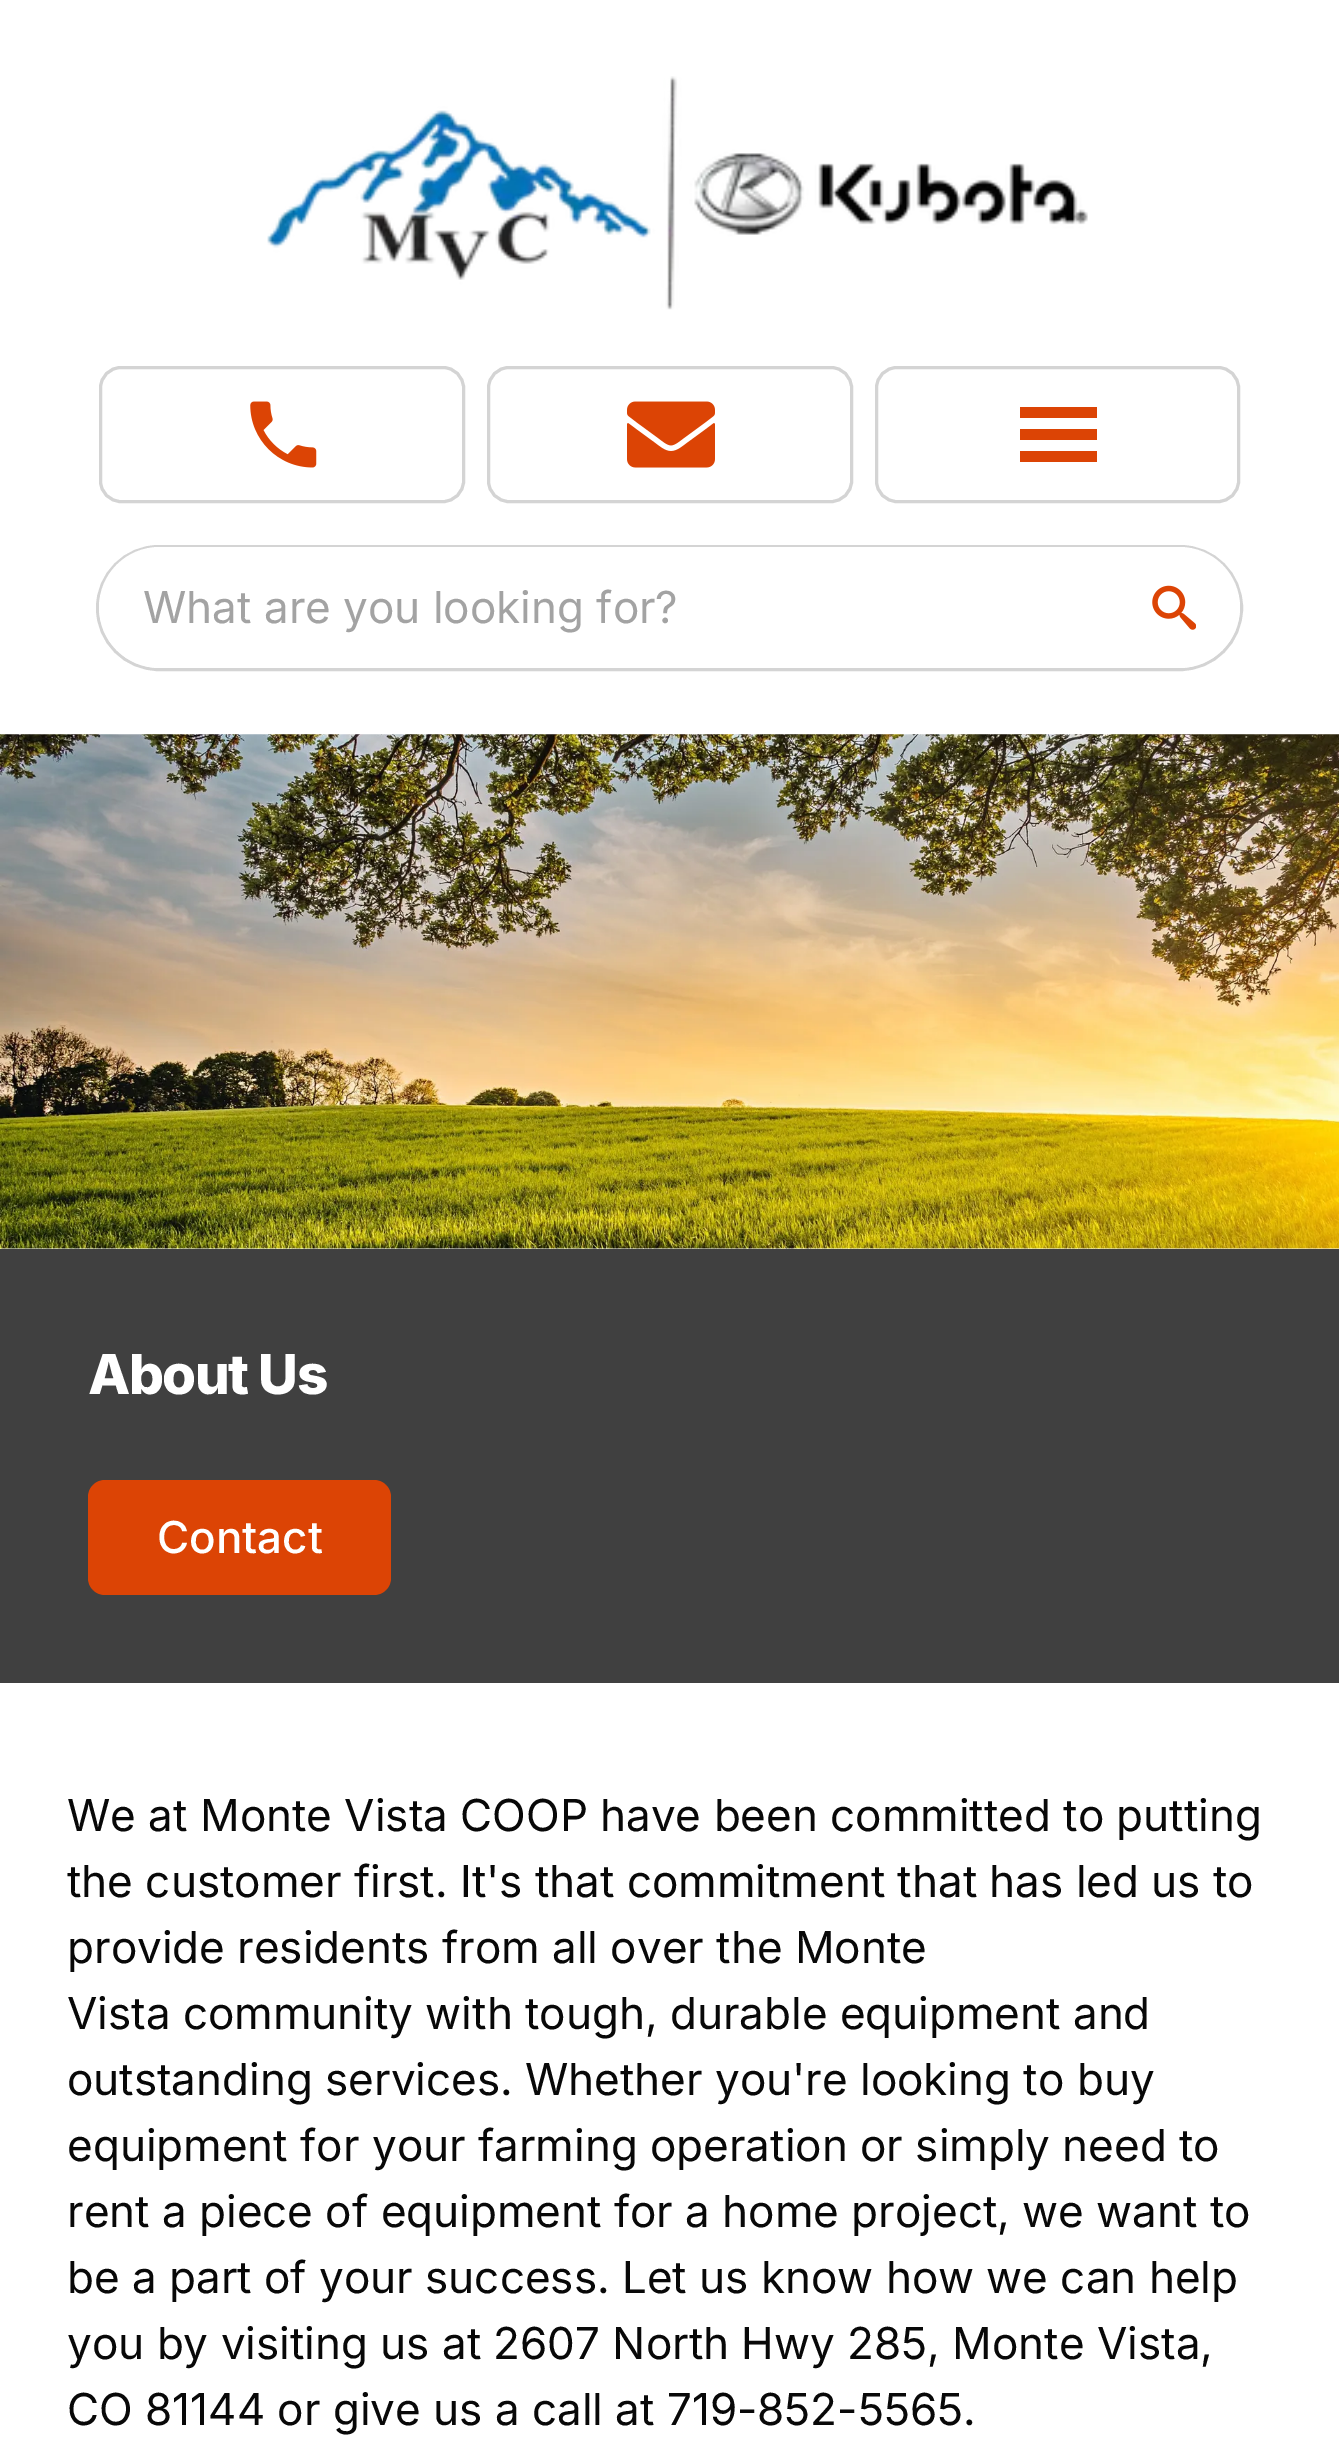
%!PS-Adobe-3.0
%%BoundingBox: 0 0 1339 2457
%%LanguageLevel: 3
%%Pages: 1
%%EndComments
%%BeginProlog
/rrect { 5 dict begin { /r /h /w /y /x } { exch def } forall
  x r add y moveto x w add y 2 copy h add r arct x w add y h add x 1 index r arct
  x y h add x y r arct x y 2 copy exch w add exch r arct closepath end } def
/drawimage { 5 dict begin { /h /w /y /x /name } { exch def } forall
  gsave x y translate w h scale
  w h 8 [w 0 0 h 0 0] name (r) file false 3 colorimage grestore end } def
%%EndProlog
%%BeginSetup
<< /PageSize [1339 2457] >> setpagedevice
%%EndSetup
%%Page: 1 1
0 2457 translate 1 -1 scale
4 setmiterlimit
1 setgray
0 0 1339 2457 rectfill
(images/1.raw) 267 76 821 234 drawimage
0.831 setgray
3 setlinewidth
100.5 367.5 363 134 20.5 rrect stroke
(images/2.raw) 250 401 67 67 drawimage
488.5 367.5 363 134 20.5 rrect stroke
(images/3.raw) 627 401 88 67 drawimage
876.5 367.5 362 134 20.5 rrect stroke
0.863 0.267 0.02 setrgbcolor
newpath 1020 407 moveto 1020 418 lineto 1097 418 lineto 1097 407 lineto closepath 1020 429 moveto 1020 440 lineto 1097 440 lineto 1097 429 lineto closepath 1020 451 moveto 1020 462 lineto 1097 462 lineto 1097 451 lineto closepath fill
0.831 setgray
97.5 546.5 1144 123 61.5 rrect stroke
1 setgray
99 547 1141 121 60.5 rrect fill
(images/4.raw) 1152 585 44 45 drawimage
(images/5.raw) 0 734 1339 515 drawimage
0.251 setgray
0 1249 1339 434 rectfill
0.863 0.267 0.02 setrgbcolor
88 1480 303 115 17 rrect fill
/Inter-Regular [44 0 0 -44 0 0] selectfont
0.639 setgray
143 623 moveto (What are you looking for?) show
/Inter-ExtraBold [55 0 0 -55 0 0] selectfont
1 setgray
88 1394 moveto -1.5 0 (About Us) ashow
/Inter-Medium [44 0 0 -44 0 0] selectfont
157 1553 moveto (Contact) show
/Inter-Regular [44 0 0 -44 0 0] selectfont
0.031 setgray
67 1831 moveto (We at Monte Vista COOP have been committed to putting) show
67 1897 moveto (the customer first. It's that commitment that has led us to) show
67 1963 moveto (provide residents from all over the Monte) show
67 2029 moveto (Vista community with tough, durable equipment and) show
67 2095 moveto (outstanding services. Whether you're looking to buy) show
67 2161 moveto (equipment for your farming operation or simply need to) show
67 2227 moveto (rent a piece of equipment for a home project, we want to) show
67 2293 moveto (be a part of your success. Let us know how we can help) show
67 2359 moveto (you by visiting us at 2607 North Hwy 285, Monte Vista,) show
67 2425 moveto (CO 81144 or give us a call at 719-852-5565.) show
showpage
%%EOF
